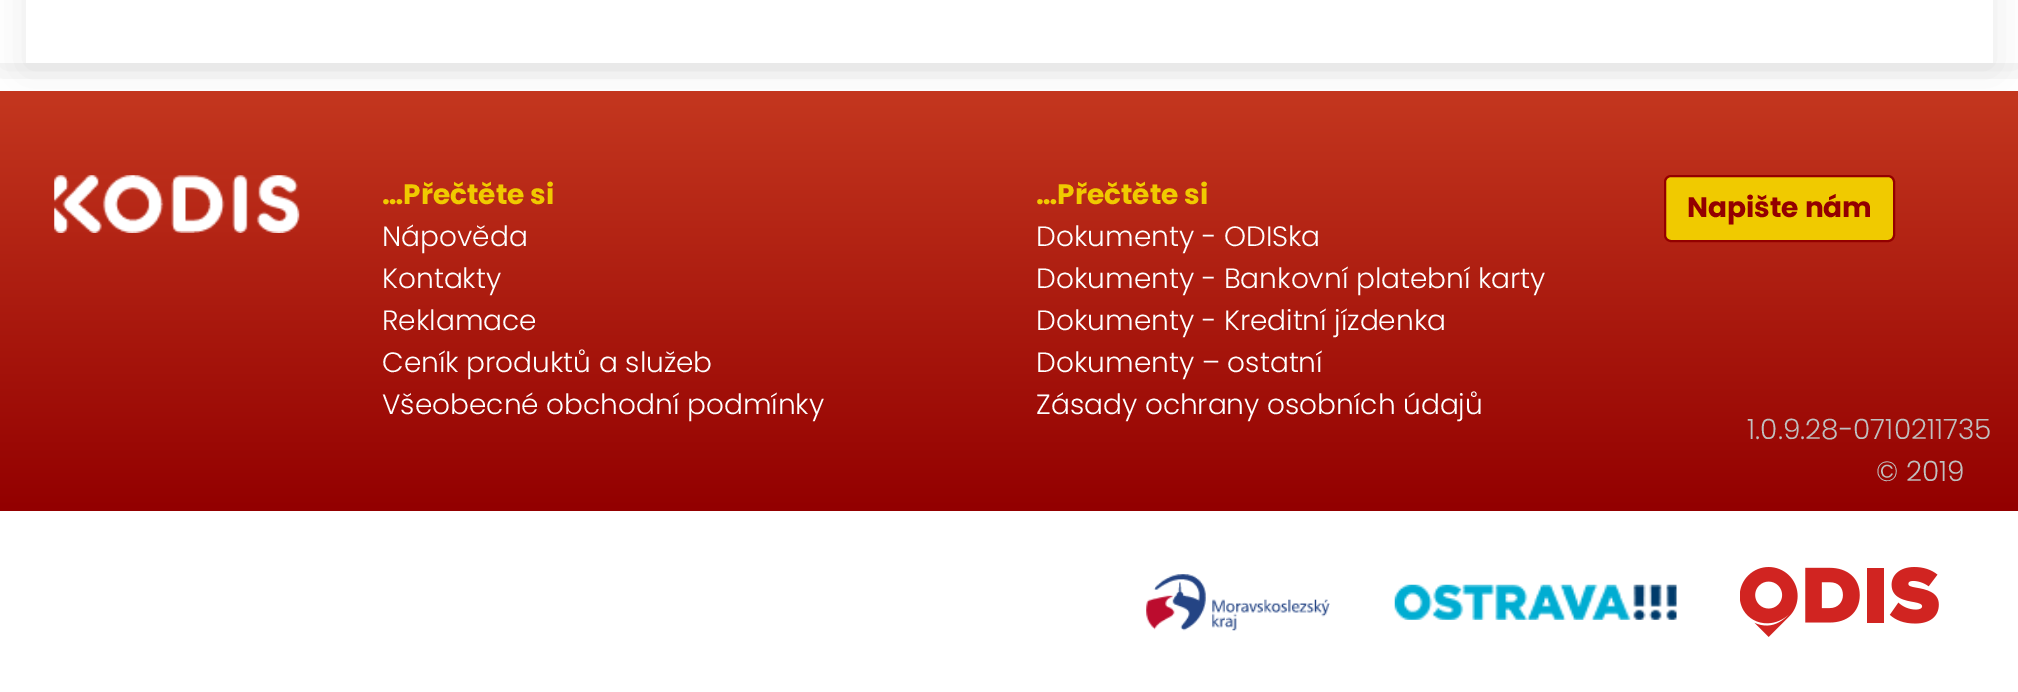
%!PS-Adobe-3.0
%%BoundingBox: 0 0 2018 692
%%LanguageLevel: 3
%%Pages: 1
%%EndComments
%%BeginProlog
/setalpha { dup .setfillconstantalpha .setstrokeconstantalpha } def
/rrect { 5 dict begin { /r /h /w /y /x } { exch def } forall
  x r add y moveto x w add y 2 copy h add r arct x w add y h add x 1 index r arct
  x y h add x y r arct x y 2 copy exch w add exch r arct closepath end } def
/softshadow { 12 dict begin { /a /b /q /h /w /y /x } { exch def } forall gsave /was 0 def
  9 -2 -9 { dup b mul 4 div /e exch def 1 sub .425 mul 2.718 exch exp 1 add a .99 .min exch div /now exch def
    1 1 now sub 1 was sub div sub setalpha /was now def
    w h .min e 2 mul add 0 gt { x e sub y e sub w e 2 mul add h e 2 mul add
      q e add b .6 mul add w h .min 2 div e add .min 0 .max rrect fill } if } for grestore end } def
/drawimage { 5 dict begin { /h /w /y /x /name } { exch def } forall
  gsave x y translate w h scale
  w h 8 [w 0 0 h 0 0] name (r) file false 3 colorimage grestore end } def
%%EndProlog
%%BeginSetup
<< /PageSize [2018 692] /PageUsesTransparency true >> setpagedevice
%%EndSetup
%%Page: 1 1
0 .pushpdf14devicefilter
0 692 translate 1 -1 scale
4 setmiterlimit
1 setgray
0 0 2018 692 rectfill
gsave
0 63 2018 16 rectclip
0 setgray
0 -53 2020 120 0 17.5 0.08 softshadow
grestore
0 setgray
26 -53 1967 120 0 17.5 0.08 softshadow
1 setgray
26 0 1967 63 rectfill
gsave newpath 0 91 moveto 2018 91 lineto 2018 511 lineto 0 511 lineto closepath clip newpath
<< /ShadingType 2 /ColorSpace /DeviceRGB /Coords [1010 91 1010 511] /Extend [true true] /Function << /FunctionType 2 /Domain [0 1] /C0 [0.769 0.216 0.122] /C1 [0.576 0 0] /N 1 >> >> shfill grestore
(images/1.raw) 54 175 246 58 drawimage
0.941 0.792 0 setrgbcolor
1665 176 229 65 6 rrect gsave fill grestore
0.576 0 0 setrgbcolor
2 setlinewidth
stroke
(images/2.raw) 1146 574 184 57 drawimage
(images/3.raw) 1394 584 283 36 drawimage
(images/4.raw) 1740 567 199 70 drawimage
/Poppins-Bold [28 0 0 -28 0 0] selectfont
0.941 0.792 0 setrgbcolor
382 204 moveto (…Přečtěte si) show
/Poppins-Light [28 0 0 -28 0 0] selectfont
1 setgray
382 246 moveto (Nápověda) show
382 288 moveto (Kontakty) show
382 330 moveto (Reklamace) show
382 372 moveto (Ceník produktů a služeb) show
382 414 moveto (Všeobecné obchodní podmínky) show
/Poppins-Bold [28 0 0 -28 0 0] selectfont
0.941 0.792 0 setrgbcolor
1036 204 moveto (…Přečtěte si) show
/Poppins-Light [28 0 0 -28 0 0] selectfont
1 setgray
1036 246 moveto (Dokumenty - ODISka) show
1036 288 moveto (Dokumenty - Bankovní platební karty) show
1036 330 moveto (Dokumenty - Kreditní jízdenka) show
1036 372 moveto (Dokumenty – ostatní) show
1036 414 moveto (Zásady ochrany osobních údajů) show
/Poppins-Bold [28 0 0 -28 0 0] selectfont
0.576 0 0 setrgbcolor
1687 217 moveto (Napište nám) show
/Poppins-Light [28 0 0 -28 0 0] selectfont
0.753 setgray
1747 439 moveto (1.0.9.28-0710211735) show
1876 481 moveto (© 2019) show
.poppdf14devicefilter showpage
%%EOF
